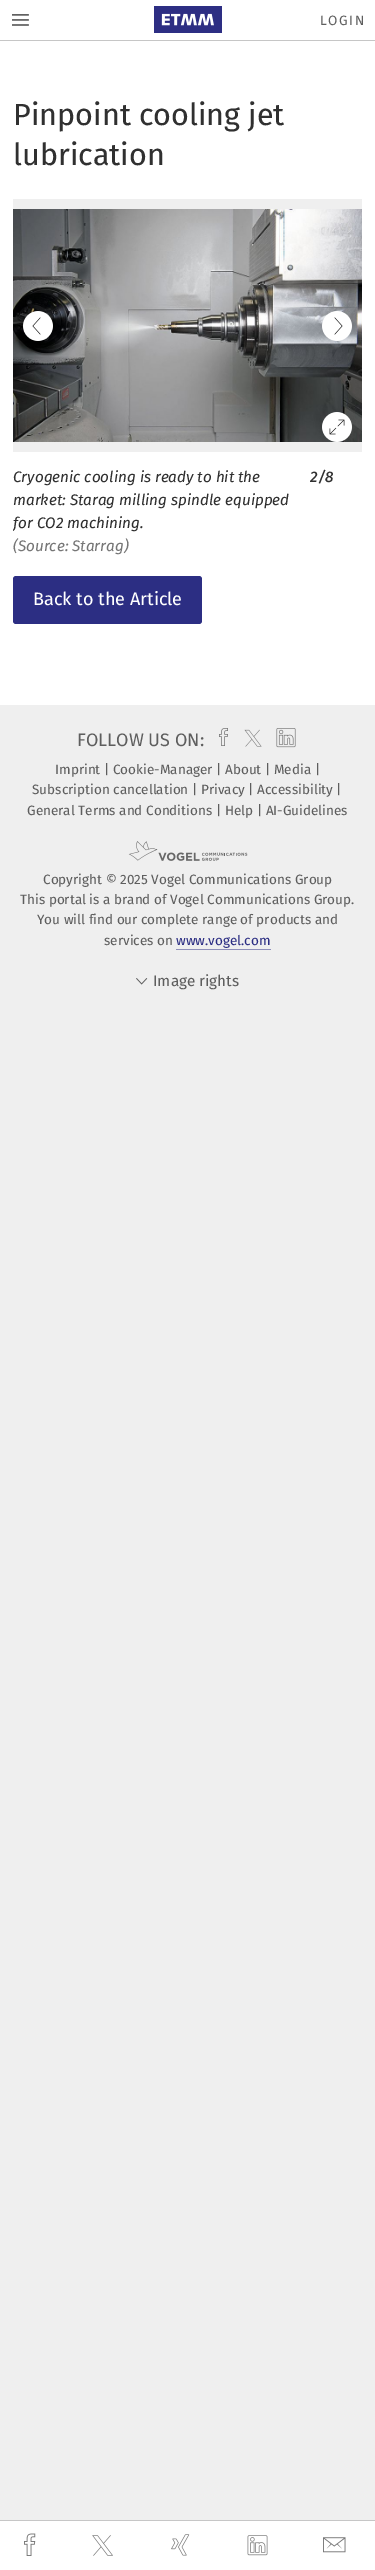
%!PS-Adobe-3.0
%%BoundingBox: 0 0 375 2570
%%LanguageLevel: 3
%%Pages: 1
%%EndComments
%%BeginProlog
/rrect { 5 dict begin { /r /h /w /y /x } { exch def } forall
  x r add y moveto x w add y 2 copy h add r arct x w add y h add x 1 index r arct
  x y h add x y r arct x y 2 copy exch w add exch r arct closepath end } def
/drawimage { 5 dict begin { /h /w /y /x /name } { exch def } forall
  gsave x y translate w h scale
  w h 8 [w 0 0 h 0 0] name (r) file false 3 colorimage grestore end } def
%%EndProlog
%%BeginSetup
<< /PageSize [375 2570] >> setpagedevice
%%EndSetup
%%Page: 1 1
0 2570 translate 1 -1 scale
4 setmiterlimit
0.937 setgray
0 0 375 2570 rectfill
1 setgray
0 41 375 664 rectfill
0 0 375 40 rectfill
0.776 setgray
0 40 375 1 rectfill
(images/1.raw) 12 14 17 12 drawimage
(images/2.raw) 154 6 68 27 drawimage
0.937 setgray
13 199 349 253 rectfill
(images/3.raw) 13 209 349 233 drawimage
(images/4.raw) 23 311 30 30 drawimage
(images/5.raw) 322 311 30 30 drawimage
(images/6.raw) 322 412 30 30 drawimage
0.173 0.18 0.514 setrgbcolor
13 576 189 48 3 rrect fill
1 setgray
0 2521 375 49 rectfill
0.776 setgray
0 2520 375 1 rectfill
(images/7.raw) 24 2533 12 23 drawimage
(images/8.raw) 92 2535 21 21 drawimage
(images/9.raw) 171 2534 19 22 drawimage
(images/10.raw) 247 2535 21 21 drawimage
(images/11.raw) 323 2537 23 16 drawimage
(images/12.raw) 219 728 9 18 drawimage
(images/13.raw) 244 729 18 18 drawimage
(images/14.raw) 276 728 20 20 drawimage
(images/15.raw) 128 841 120 20 drawimage
0.557 0.561 0.725 setrgbcolor
176 949 95 1 rectfill
(images/16.raw) 136 978 12 7 drawimage
/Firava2-Regular [13.5 0 0 -13.5 0 0] selectfont
0.369 setgray
320 25 moveto 1.5 0 (LOGIN) ashow
/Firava-Regular [30.5 0 0 -30.5 0 0] selectfont
0.188 setgray
13 125 moveto (Pinpoint cooling jet) show
13 165 moveto (lubrication) show
/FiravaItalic-Italic [15.25 0 0 -15.25 0 0] selectfont
13 482 moveto (Cryogenic cooling is ready to hit the) show
13 505 moveto (market: Starag milling spindle equipped) show
gsave
13 199 349 359 rectclip
13 528 moveto (for CO2 machining.) show
grestore
0.463 setgray
13 551 moveto (\(Source: Starrag\)) show
/FiravaItalic-MediumItalic [15.25 0 0 -15.25 0 0] selectfont
0.188 setgray
310 482 moveto (2/8) show
/Firava-Regular [18 0 0 -18 0 0] selectfont
1 setgray
33 605 moveto (Back to the Article) show
/Firava2-Regular [18 0 0 -18 0 0] selectfont
0.369 setgray
77 746 moveto (FOLLOW US ON:) show
/Firava-Regular [13.5 0 0 -13.5 0 0] selectfont
55 774 moveto (Imprint | Cookie-Manager | About | Media |) show
32 794 moveto (Subscription cancellation | Privacy | Accessibility |) show
27 815 moveto (General Terms and Conditions | Help | AI-Guidelines) show
43 884 moveto (Copyright © 2025 Vogel Communications Group) show
20 904 moveto (This portal is a brand of Vogel Communications Group.) show
37 924 moveto (You will find our complete range of products and) show
104 945 moveto (services on) show
0.173 0.18 0.514 setrgbcolor
176 945 moveto (www.vogel.com) show
/Firava-Regular [15.25 0 0 -15.25 0 0] selectfont
0.369 setgray
153 986 moveto (Image rights) show
showpage
%%EOF
